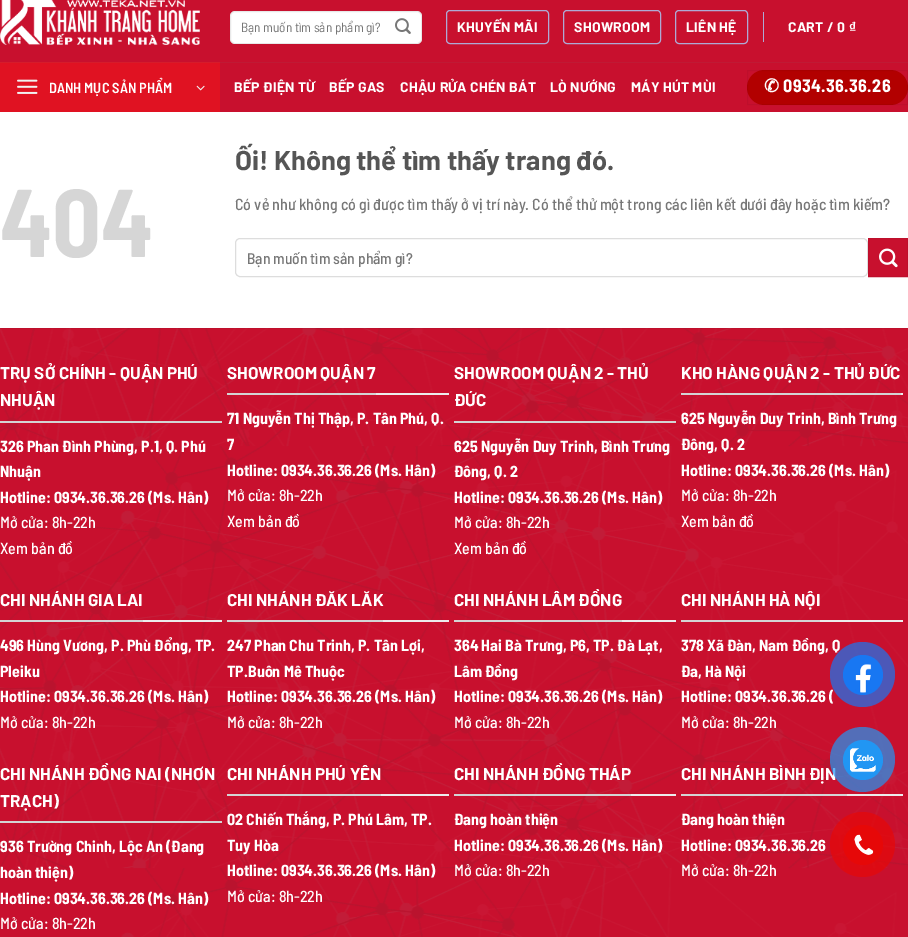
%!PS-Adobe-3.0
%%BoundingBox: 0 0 908 937
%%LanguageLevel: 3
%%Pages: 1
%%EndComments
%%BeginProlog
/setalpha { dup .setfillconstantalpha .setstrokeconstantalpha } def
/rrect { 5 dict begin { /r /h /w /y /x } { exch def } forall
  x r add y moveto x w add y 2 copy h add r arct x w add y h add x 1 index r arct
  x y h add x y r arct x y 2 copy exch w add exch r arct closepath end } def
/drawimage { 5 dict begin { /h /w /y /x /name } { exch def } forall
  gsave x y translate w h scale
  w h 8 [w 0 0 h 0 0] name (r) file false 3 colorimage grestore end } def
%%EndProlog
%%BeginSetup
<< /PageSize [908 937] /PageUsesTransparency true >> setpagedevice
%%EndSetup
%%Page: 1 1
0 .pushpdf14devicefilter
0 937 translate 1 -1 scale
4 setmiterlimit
1 setgray
0 0 908 937 rectfill
0.784 0.063 0.18 setrgbcolor
0 0 908 62 rectfill
(images/1.raw) 0 0 200 45 drawimage
1 setgray
230 11 192 33 5 rrect fill
0.09 setalpha
0 setgray
230.5 11.5 191 32 4.5 rrect stroke
1 setalpha
(images/2.raw) 395 18 16 16 drawimage
0.682 0.667 0.835 setrgbcolor
446.5 10.5 102 33 3.5 rrect stroke
563.5 10.5 97 33 3.5 rrect stroke
675.5 10.5 72 33 3.5 rrect stroke
763 12 1 30 rectfill
0.784 0.063 0.18 setrgbcolor
220 63 688 49 rectfill
0.753 0.102 0.208 setrgbcolor
220 62 688 1 rectfill
0.878 0.071 0.133 setrgbcolor
0 63 220 49 rectfill
0.839 0.11 0.169 setrgbcolor
0 62 220 1 rectfill
(images/3.raw) 17 79 21 15 drawimage
(images/4.raw) 196 85 9 6 drawimage
0.698 0 0 setrgbcolor
747 70 161 35 17.5 rrect fill
0.05 setalpha
0 setgray
747.5 70.5 160 34 rectstroke
1 setalpha
0.867 setgray
235.5 238.5 632 38 4.5 rrect stroke
0.784 0.063 0.18 setrgbcolor
newpath 868.5 238.5 moveto 907.5 238.5 lineto 907.5 276.5 lineto 868.5 276.5 lineto closepath gsave fill grestore
0.745 0.059 0.173 setrgbcolor
stroke
(images/5.raw) 879 248 19 20 drawimage
0.784 0.063 0.18 setrgbcolor
0 328 908 609 rectfill
(images/6.raw) 0 328 908 609 drawimage
0.05 setalpha
0 setgray
0 328 908 1 rectfill
1 setalpha
0.831 setgray
0 421 222 2 rectfill
0.925 setgray
376 393 73 2 rectfill
0.831 setgray
227 393 149 2 rectfill
454 421 222 2 rectfill
0.925 setgray
901 393 2 2 rectfill
0.831 setgray
681 393 220 2 rectfill
0.925 setgray
143 620 79 2 rectfill
0.831 setgray
0 620 143 2 rectfill
0.925 setgray
383 620 66 2 rectfill
0.831 setgray
227 620 156 2 rectfill
0.925 setgray
622 620 54 2 rectfill
0.831 setgray
454 620 168 2 rectfill
0.925 setgray
820 620 83 2 rectfill
0.831 setgray
681 620 139 2 rectfill
0 821 222 2 rectfill
0.925 setgray
381 794 68 2 rectfill
0.831 setgray
227 794 154 2 rectfill
0.925 setgray
631 794 45 2 rectfill
0.831 setgray
454 794 177 2 rectfill
0.925 setgray
847 794 56 2 rectfill
0.831 setgray
681 794 166 2 rectfill
0.7 setalpha
0.902 0.031 0.031 setrgbcolor
newpath 862.5 844.5 32.5 0 360 arc closepath fill
1 setalpha
newpath 863 845 20 0 360 arc closepath fill
(images/9.raw) 854 834 20 21 drawimage
/BarlowSemiCondensed-Regular [13.25 0 0 -13.25 0 0] selectfont
0.467 setgray
241 32 moveto (Bạn muốn tìm sản phẩm gì?) show
/Barlow-Bold [14 0 0 -14 0 0] selectfont
1 setgray
457 32 moveto 0.25 0 (KHUYẾN MÃI) ashow
574 32 moveto 0.25 0 (SHOWROOM) ashow
686 32 moveto 0.25 0 (LIÊN HỆ) ashow
788 32 moveto 0.25 0 (CART / 0) ashow
/LiberationSans-Bold [14 0 0 -14 0 0] selectfont
849 32 moveto 0.25 0 (₫) ashow
/BarlowSemiCondensed-SemiBold [14.5 0 0 -14.5 0 0] selectfont
49 93 moveto (DANH MỤC SẢN PHẨM) show
/Barlow-Bold [14 0 0 -14 0 0] selectfont
234 92 moveto 0.25 0 (BẾP ĐIỆN TỪ) ashow
329 92 moveto 0.25 0 (BẾP GAS) ashow
400 92 moveto 0.25 0 (CHẬU RỬA CHÉN BÁT) ashow
550 92 moveto 0.25 0 (LÒ NƯỚNG) ashow
631 92 moveto 0.25 0 (MÁY HÚT MÙI) ashow
/DejaVuSans-Bold [18 0 0 -18 0 0] selectfont
764 92 moveto 0.4 0 (✆) ashow
/BarlowSemiCondensed-Bold [18 0 0 -18 0 0] selectfont
783 92 moveto 0.4 0 (0934.36.36.26) ashow
/BarlowSemiCondensed-Bold [96 0 0 -96 0 0] selectfont
0.839 setgray
0 257 moveto (404) show
/Barlow-Bold [27.25 0 0 -27.25 0 0] selectfont
0.333 setgray
235 170 moveto (Ối! Không thể tìm thấy trang đó.) show
/BarlowSemiCondensed-Medium [16 0 0 -16 0 0] selectfont
0.467 setgray
235 210 moveto (Có vẻ như không có gì được tìm thấy ở vị trí này. Có thể thử một trong các liên kết dưới đây hoặc tìm kiếm?) show
/BarlowSemiCondensed-Medium [15.5 0 0 -15.5 0 0] selectfont
247 264 moveto (Bạn muốn tìm sản phẩm gì?) show
/Barlow-Bold [17 0 0 -17 0 0] selectfont
1 setgray
0 379 moveto (TRỤ SỞ CHÍNH - QUẬN PHÚ) show
0 406 moveto (NHUẬN) show
/BarlowSemiCondensed-Bold [16 0 0 -16 0 0] selectfont
0 452 moveto (326 Phan Đình Phùng, P.1, Q. Phú) show
0 477 moveto (Nhuận) show
0 503 moveto (Hotline: 0934.36.36.26 \(Ms. Hân\)) show
/BarlowSemiCondensed-Medium [16 0 0 -16 0 0] selectfont
0 528 moveto (Mở cửa: 8h-22h) show
0 554 moveto (Xem bản đồ) show
/Barlow-Bold [17 0 0 -17 0 0] selectfont
227 379 moveto (SHOWROOM QUẬN 7) show
/BarlowSemiCondensed-Bold [16 0 0 -16 0 0] selectfont
227 424 moveto (71 Nguyễn Thị Thập, P. Tân Phú, Q.) show
227 450 moveto (7) show
227 476 moveto (Hotline: 0934.36.36.26 \(Ms. Hân\)) show
/BarlowSemiCondensed-Medium [16 0 0 -16 0 0] selectfont
227 501 moveto (Mở cửa: 8h-22h) show
227 527 moveto (Xem bản đồ) show
/Barlow-Bold [17 0 0 -17 0 0] selectfont
454 379 moveto (SHOWROOM QUẬN 2 - THỦ) show
454 406 moveto (ĐỨC) show
/BarlowSemiCondensed-Bold [16 0 0 -16 0 0] selectfont
454 452 moveto (625 Nguyễn Duy Trinh, Bình Trưng) show
454 477 moveto (Đông, Q. 2) show
454 503 moveto (Hotline: 0934.36.36.26 \(Ms. Hân\)) show
/BarlowSemiCondensed-Medium [16 0 0 -16 0 0] selectfont
454 528 moveto (Mở cửa: 8h-22h) show
454 554 moveto (Xem bản đồ) show
/Barlow-Bold [17 0 0 -17 0 0] selectfont
681 379 moveto (KHO HÀNG QUẬN 2 - THỦ ĐỨC) show
/BarlowSemiCondensed-Bold [16 0 0 -16 0 0] selectfont
681 424 moveto (625 Nguyễn Duy Trinh, Bình Trưng) show
681 450 moveto (Đông, Q. 2) show
681 476 moveto (Hotline: 0934.36.36.26 \(Ms. Hân\)) show
/BarlowSemiCondensed-Medium [16 0 0 -16 0 0] selectfont
681 501 moveto (Mở cửa: 8h-22h) show
681 527 moveto (Xem bản đồ) show
/Barlow-Bold [17 0 0 -17 0 0] selectfont
0 606 moveto (CHI NHÁNH GIA LAI) show
/BarlowSemiCondensed-Bold [16 0 0 -16 0 0] selectfont
0 651 moveto (496 Hùng Vương, P. Phù Đổng, TP.) show
0 677 moveto (Pleiku) show
0 702 moveto (Hotline: 0934.36.36.26 \(Ms. Hân\)) show
/BarlowSemiCondensed-Medium [16 0 0 -16 0 0] selectfont
0 728 moveto (Mở cửa: 8h-22h) show
/Barlow-Bold [17 0 0 -17 0 0] selectfont
227 606 moveto (CHI NHÁNH ĐĂK LĂK) show
/BarlowSemiCondensed-Bold [16 0 0 -16 0 0] selectfont
227 651 moveto (247 Phan Chu Trinh, P. Tân Lợi,) show
227 677 moveto (TP.Buôn Mê Thuộc) show
227 702 moveto (Hotline: 0934.36.36.26 \(Ms. Hân\)) show
/BarlowSemiCondensed-Medium [16 0 0 -16 0 0] selectfont
227 728 moveto (Mở cửa: 8h-22h) show
/Barlow-Bold [17 0 0 -17 0 0] selectfont
454 606 moveto (CHI NHÁNH LÂM ĐỒNG) show
/BarlowSemiCondensed-Bold [16 0 0 -16 0 0] selectfont
454 651 moveto (364 Hai Bà Trưng, P6, TP. Đà Lạt,) show
454 677 moveto (Lâm Đồng) show
454 702 moveto (Hotline: 0934.36.36.26 \(Ms. Hân\)) show
/BarlowSemiCondensed-Medium [16 0 0 -16 0 0] selectfont
454 728 moveto (Mở cửa: 8h-22h) show
/Barlow-Bold [17 0 0 -17 0 0] selectfont
681 606 moveto (CHI NHÁNH HÀ NỘI) show
/BarlowSemiCondensed-Bold [16 0 0 -16 0 0] selectfont
681 651 moveto (378 Xã Đàn, Nam Đồng, Q) show
681 677 moveto (Đa, Hà Nội) show
681 702 moveto (Hotline: 0934.36.36.26 \() show
/BarlowSemiCondensed-Medium [16 0 0 -16 0 0] selectfont
681 728 moveto (Mở cửa: 8h-22h) show
/Barlow-Bold [17 0 0 -17 0 0] selectfont
0 780 moveto (CHI NHÁNH ĐỒNG NAI \(NHƠN) show
0 807 moveto (TRẠCH\)) show
/BarlowSemiCondensed-Bold [16 0 0 -16 0 0] selectfont
0 852 moveto (936 Trường Chinh, Lộc An \(Đang) show
0 878 moveto (hoàn thiện\)) show
0 904 moveto (Hotline: 0934.36.36.26 \(Ms. Hân\)) show
/BarlowSemiCondensed-Medium [16 0 0 -16 0 0] selectfont
0 929 moveto (Mở cửa: 8h-22h) show
/Barlow-Bold [17 0 0 -17 0 0] selectfont
227 780 moveto (CHI NHÁNH PHÚ YÊN) show
/BarlowSemiCondensed-Bold [16 0 0 -16 0 0] selectfont
227 825 moveto (02 Chiến Thắng, P. Phú Lâm, TP.) show
227 851 moveto (Tuy Hòa) show
227 876 moveto (Hotline: 0934.36.36.26 \(Ms. Hân\)) show
/BarlowSemiCondensed-Medium [16 0 0 -16 0 0] selectfont
227 902 moveto (Mở cửa: 8h-22h) show
/Barlow-Bold [17 0 0 -17 0 0] selectfont
454 780 moveto (CHI NHÁNH ĐỒNG THÁP) show
/BarlowSemiCondensed-Bold [16 0 0 -16 0 0] selectfont
454 825 moveto (Đang hoàn thiện) show
454 851 moveto (Hotline: 0934.36.36.26 \(Ms. Hân\)) show
/BarlowSemiCondensed-Medium [16 0 0 -16 0 0] selectfont
454 876 moveto (Mở cửa: 8h-22h) show
/Barlow-Bold [17 0 0 -17 0 0] selectfont
681 780 moveto (CHI NHÁNH BÌNH ĐỊN) show
/BarlowSemiCondensed-Bold [16 0 0 -16 0 0] selectfont
681 825 moveto (Đang hoàn thiện) show
681 851 moveto (Hotline: 0934.36.36.26) show
/BarlowSemiCondensed-Medium [16 0 0 -16 0 0] selectfont
681 876 moveto (Mở cửa: 8h-22h) show
0.7 setalpha
0.094 0.467 0.949 setrgbcolor
newpath 862.5 674.5 32.5 0 360 arc closepath fill
1 setalpha
newpath 863 675 20 0 360 arc closepath fill
(images/7.raw) 855 664 17 29 drawimage
0.7 setalpha
0.129 0.588 0.953 setrgbcolor
newpath 862.5 759.5 32.5 0 360 arc closepath fill
1 setalpha
newpath 863 760 20 0 360 arc closepath fill
(images/8.raw) 850 748 26 24 drawimage
.poppdf14devicefilter showpage
%%EOF
